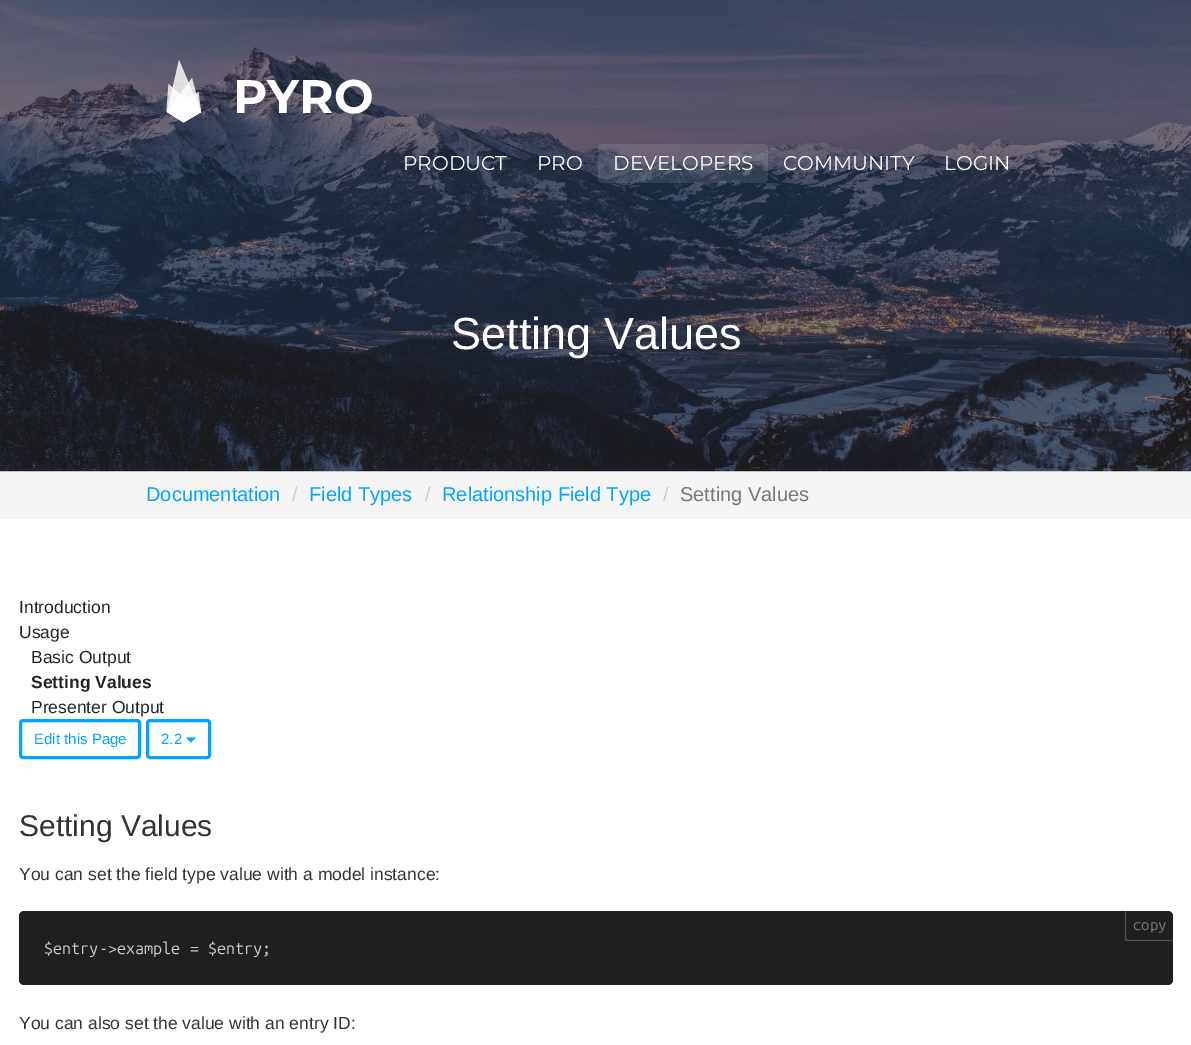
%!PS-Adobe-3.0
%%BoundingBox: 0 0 1191 1045
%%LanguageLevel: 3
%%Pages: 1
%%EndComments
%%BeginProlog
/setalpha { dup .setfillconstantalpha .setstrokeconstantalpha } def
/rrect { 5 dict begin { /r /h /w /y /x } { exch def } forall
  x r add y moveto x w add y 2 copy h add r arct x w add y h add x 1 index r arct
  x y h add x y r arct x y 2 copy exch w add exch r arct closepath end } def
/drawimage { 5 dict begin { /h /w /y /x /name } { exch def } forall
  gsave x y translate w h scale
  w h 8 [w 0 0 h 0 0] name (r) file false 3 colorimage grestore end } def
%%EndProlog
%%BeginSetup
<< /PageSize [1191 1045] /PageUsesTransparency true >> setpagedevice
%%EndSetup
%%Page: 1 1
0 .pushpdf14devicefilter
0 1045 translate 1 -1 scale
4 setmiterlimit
1 setgray
0 0 1191 1045 rectfill
0.961 setgray
0 471 1191 48 rectfill
(images/1.raw) 0 0 1191 472 drawimage
0.8 setalpha
1 setgray
newpath 201 112 moveto 184 122 lineto 167 112 lineto 192 78 lineto closepath fill
newpath 201 112 moveto 184 122 lineto 167 112 lineto 179 60 lineto closepath fill
newpath 201 112 moveto 183.5 122.5 lineto 166.5 111.5 lineto 168.5 84 lineto closepath fill
newpath 198.5 92 moveto 201 112 lineto 183.5 122.5 lineto 166.5 111.5 lineto closepath fill
0.1 setalpha
598 144 170 39 5 rrect fill
1 setalpha
0.004 0.647 0.984 setrgbcolor
3 setlinewidth
20.5 720.5 119 37 2.5 rrect stroke
147.5 720.5 62 37 2.5 rrect stroke
newpath 186 737.5 moveto 196 737.5 lineto 191 742.5 lineto closepath fill
0.114 0.122 0.129 setrgbcolor
19 911 1154 74 5 rrect fill
0.337 0.341 0.349 setrgbcolor
newpath 1125 911 moveto 1172 911 lineto 1172 941 lineto 1128 941 lineto 1126 941 1125 940 1125 938 curveto closepath 1126 911 moveto 1172 911 lineto 1172 940 lineto 1128 940 lineto 1127 940 1126 939 1126 938 curveto closepath eofill
/Montserrat-Bold [47 0 0 -47 0 0] selectfont
1 setgray
233 113 moveto (PYRO) show
/Montserrat-Regular [20 0 0 -20 0 0] selectfont
403 170 moveto (PRODUCT) show
537 170 moveto (PRO) show
613 170 moveto (DEVELOPERS) show
783 170 moveto (COMMUNITY) show
944 170 moveto (LOGIN) show
/LiberationSans-Regular [45 0 0 -45 0 0] selectfont
451 349 moveto (Setting Values) show
/LiberationSans-Regular [20 0 0 -20 0 0] selectfont
0.004 0.647 0.984 setrgbcolor
146 501 moveto (Documentation) show
0.8 setgray
292 501 moveto (/) show
0.004 0.647 0.984 setrgbcolor
309 501 moveto (Field Types) show
0.8 setgray
425 501 moveto (/) show
0.004 0.647 0.984 setrgbcolor
442 501 moveto (Relationship Field Type) show
0.8 setgray
663 501 moveto (/) show
0.467 setgray
680 501 moveto (Setting Values) show
/LiberationSans-Regular [17.5 0 0 -17.5 0 0] selectfont
0.129 0.145 0.161 setrgbcolor
19 613 moveto (Introduction) show
19 638 moveto (Usage) show
31 663 moveto (Basic Output) show
/LiberationSans-Bold [17.5 0 0 -17.5 0 0] selectfont
31 688 moveto (Setting Values) show
/LiberationSans-Regular [17.5 0 0 -17.5 0 0] selectfont
31 713 moveto (Presenter Output) show
/LiberationSans-Regular [15 0 0 -15 0 0] selectfont
0.004 0.647 0.984 setrgbcolor
34 744 moveto (Edit this Page) show
161 744 moveto (2.2) show
/LiberationSans-Regular [30 0 0 -30 0 0] selectfont
0.2 setgray
19 836 moveto (Setting Values) show
/LiberationSans-Regular [17.5 0 0 -17.5 0 0] selectfont
19 880 moveto (You can set the field type value with a model instance:) show
/UbuntuMono-Regular [15 0 0 -15 0 0] selectfont
0.467 setgray
1133 930 moveto (copy) show
/UbuntuMono-Regular [16.25 0 0 -16.25 0 0] selectfont
0.8 setgray
44 954 moveto ($entry->example = $entry;) show
/LiberationSans-Regular [17.5 0 0 -17.5 0 0] selectfont
0.2 setgray
19 1029 moveto (You can also set the value with an entry ID:) show
.poppdf14devicefilter showpage
%%EOF
